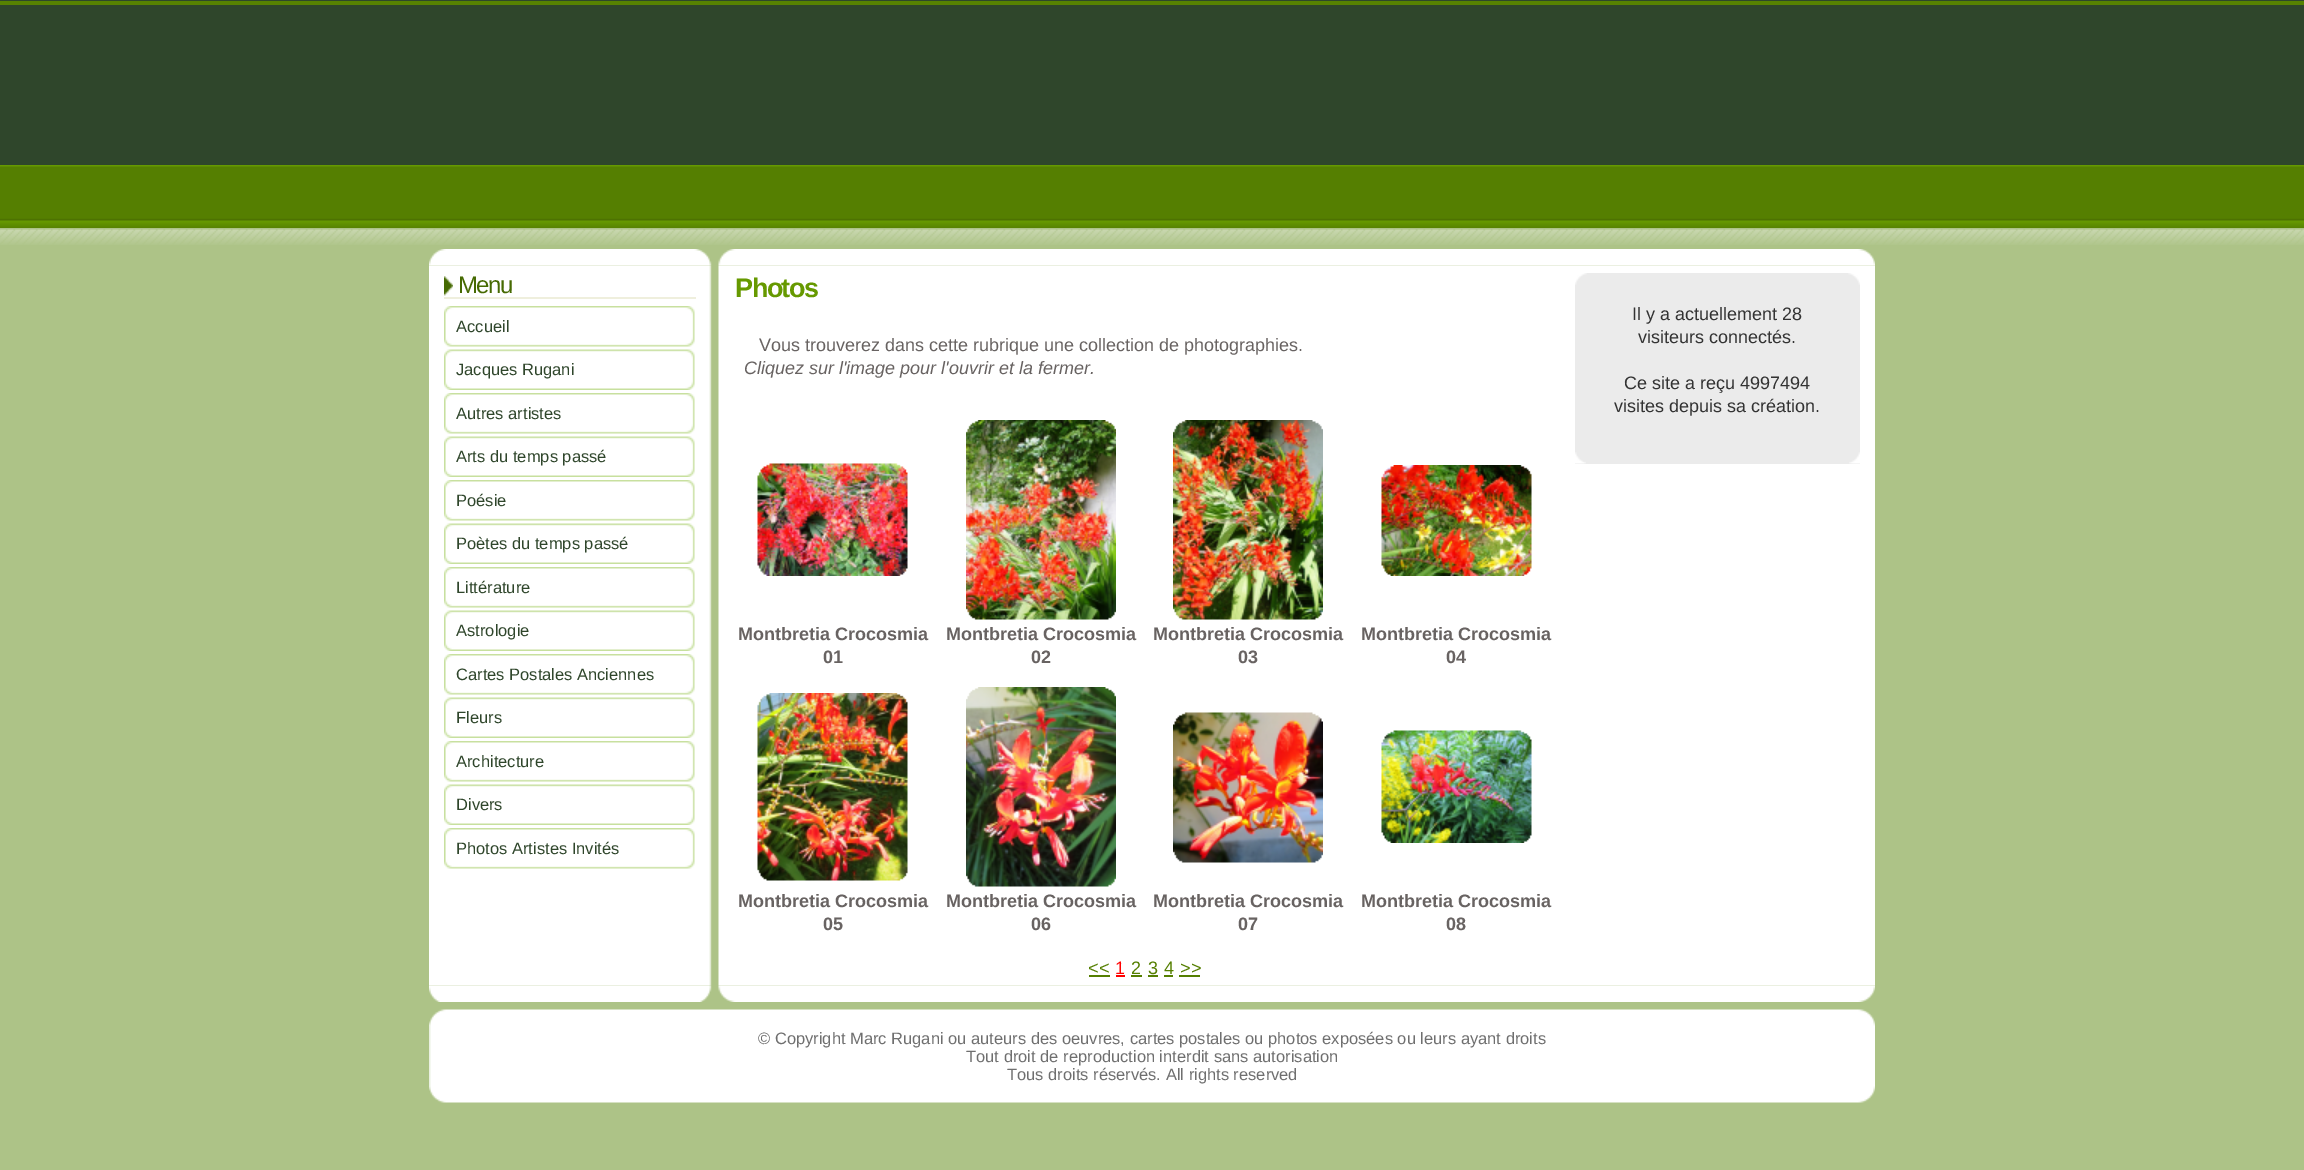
%!PS-Adobe-3.0
%%BoundingBox: 0 0 2304 1170
%%LanguageLevel: 3
%%Pages: 1
%%EndComments
%%BeginProlog
/drawimage { 5 dict begin { /h /w /y /x /name } { exch def } forall
  gsave x y translate w h scale
  w h 8 [w 0 0 h 0 0] name (r) file false 3 colorimage grestore end } def
%%EndProlog
%%BeginSetup
<< /PageSize [2304 1170] >> setpagedevice
%%EndSetup
%%Page: 1 1
0 1170 translate 1 -1 scale
4 setmiterlimit
0.678 0.765 0.529 setrgbcolor
0 0 2304 1170 rectfill
(images/1.raw) 0 229 2304 16 drawimage
0.184 0.275 0.169 setrgbcolor
0 0 2304 165 rectfill
0.341 0.51 0.004 setrgbcolor
0 1 2304 4 rectfill
(images/2.raw) 0 165 2304 63 drawimage
(images/3.raw) 429 249 1446 17 drawimage
(images/4.raw) 429 265 1446 721 drawimage
(images/5.raw) 444 276 9 20 drawimage
0.937 0.937 0.867 setrgbcolor
444 297 252 2 rectfill
(images/6.raw) 444 306 251 41 drawimage
(images/7.raw) 444 349 251 41 drawimage
(images/6.raw) 444 393 251 41 drawimage
(images/7.raw) 444 436 251 41 drawimage
(images/6.raw) 444 480 251 41 drawimage
(images/7.raw) 444 523 251 41 drawimage
(images/6.raw) 444 567 251 41 drawimage
(images/7.raw) 444 610 251 41 drawimage
(images/6.raw) 444 654 251 41 drawimage
(images/7.raw) 444 697 251 41 drawimage
(images/6.raw) 444 741 251 41 drawimage
(images/7.raw) 444 784 251 41 drawimage
(images/6.raw) 444 828 251 41 drawimage
(images/8.raw) 757 463 151 113 drawimage
(images/9.raw) 966 420 150 200 drawimage
(images/10.raw) 1173 420 150 200 drawimage
(images/11.raw) 1381 465 151 111 drawimage
(images/12.raw) 757 693 151 188 drawimage
(images/13.raw) 966 687 150 200 drawimage
(images/14.raw) 1173 712 150 151 drawimage
(images/15.raw) 1381 730 151 113 drawimage
0.333 0.498 0.004 setrgbcolor
1089 975 21 2 rectfill
1 0 0 setrgbcolor
1116 975 9 2 rectfill
0.333 0.498 0.004 setrgbcolor
1131 975 11 2 rectfill
1148 975 10 2 rectfill
1164 975 9 2 rectfill
1179 975 21 2 rectfill
0.922 setgray
1575 273 285 191 rectfill
(images/16.raw) 1848 273 12 12 drawimage
(images/17.raw) 1575 273 12 12 drawimage
(images/18.raw) 1575 452 11 12 drawimage
(images/19.raw) 1849 452 11 12 drawimage
(images/20.raw) 429 985 1446 17 drawimage
(images/21.raw) 429 1009 1446 17 drawimage
(images/22.raw) 429 1026 1446 60 drawimage
(images/23.raw) 429 1086 1446 17 drawimage
/LiberationSans-Regular [24 0 0 -24 0 0] selectfont
0.275 0.416 0.008 setrgbcolor
458 293 moveto -1.5 0 (Menu) ashow
/LiberationSans-Regular [16.5 0 0 -16.5 0 0] selectfont
0.184 0.275 0.169 setrgbcolor
456 332 moveto (Accueil) show
456 375 moveto (Jacques Rugani) show
456 419 moveto (Autres artistes) show
456 462 moveto (Arts du temps passé) show
456 506 moveto (Poésie) show
456 549 moveto (Poètes du temps passé) show
456 593 moveto (Littérature) show
456 636 moveto (Astrologie) show
456 680 moveto (Cartes Postales Anciennes) show
456 723 moveto (Fleurs) show
456 767 moveto (Architecture) show
456 810 moveto (Divers) show
456 854 moveto (Photos Artistes Invités) show
/LiberationSans-Bold [27 0 0 -27 0 0] selectfont
0.4 0.6 0 setrgbcolor
735 297 moveto -1.5 0 (Photos) ashow
/LiberationSans-Regular [18 0 0 -18 0 0] selectfont
0.408 0.388 0.384 setrgbcolor
759 351 moveto (Vous trouverez dans cette rubrique une collection de photographies.) show
/LiberationSans-Italic [18 0 0 -18 0 0] selectfont
744 374 moveto (Cliquez sur l'image pour l'ouvrir et la fermer.) show
/LiberationSans-Bold [18 0 0 -18 0 0] selectfont
738 640 moveto (Montbretia Crocosmia) show
823 663 moveto (01) show
946 640 moveto (Montbretia Crocosmia) show
1031 663 moveto (02) show
1153 640 moveto (Montbretia Crocosmia) show
1238 663 moveto (03) show
1361 640 moveto (Montbretia Crocosmia) show
1446 663 moveto (04) show
738 907 moveto (Montbretia Crocosmia) show
823 930 moveto (05) show
946 907 moveto (Montbretia Crocosmia) show
1031 930 moveto (06) show
1153 907 moveto (Montbretia Crocosmia) show
1238 930 moveto (07) show
1361 907 moveto (Montbretia Crocosmia) show
1446 930 moveto (08) show
/LiberationSans-Regular [18 0 0 -18 0 0] selectfont
0.333 0.498 0.004 setrgbcolor
1088 974 moveto (<<) show
1 0 0 setrgbcolor
1115 974 moveto (1) show
0.333 0.498 0.004 setrgbcolor
1131 974 moveto (2) show
1148 974 moveto (3) show
1164 974 moveto (4) show
1180 974 moveto (>>) show
0.2 setgray
1632 320 moveto (Il y a actuellement 28) show
1638 343 moveto (visiteurs connectés.) show
1624 389 moveto (Ce site a reçu 4997494) show
1614 412 moveto (visites depuis sa création.) show
/LiberationSans-Regular [16.5 0 0 -16.5 0 0] selectfont
0.435 setgray
758 1044 moveto (© Copyright Marc Rugani ou auteurs des oeuvres, cartes postales ou photos exposées ou leurs ayant droits) show
966 1062 moveto (Tout droit de reproduction interdit sans autorisation) show
1007 1080 moveto (Tous droits réservés. All rights reserved) show
showpage
%%EOF
